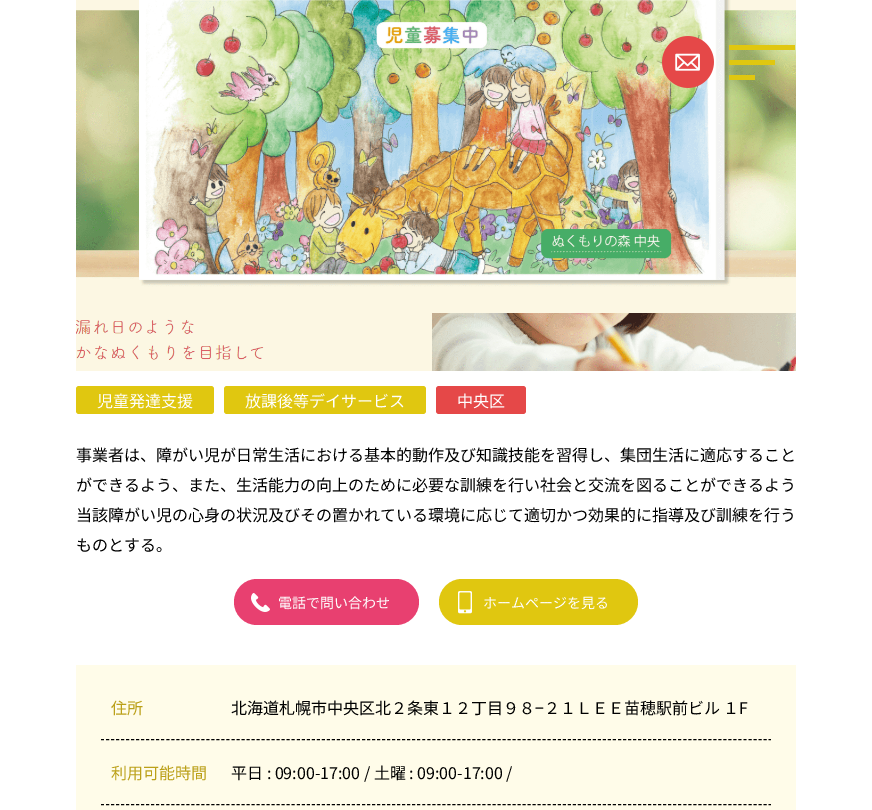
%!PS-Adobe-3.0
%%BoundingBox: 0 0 872 810
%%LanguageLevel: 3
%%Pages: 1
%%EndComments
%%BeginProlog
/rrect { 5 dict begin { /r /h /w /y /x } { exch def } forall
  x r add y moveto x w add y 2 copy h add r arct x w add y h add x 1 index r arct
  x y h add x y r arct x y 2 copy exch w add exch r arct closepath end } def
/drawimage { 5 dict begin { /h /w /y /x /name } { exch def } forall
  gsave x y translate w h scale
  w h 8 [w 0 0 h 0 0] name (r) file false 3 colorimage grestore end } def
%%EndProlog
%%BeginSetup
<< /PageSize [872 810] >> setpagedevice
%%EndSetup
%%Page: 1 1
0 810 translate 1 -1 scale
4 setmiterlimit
1 setgray
0 0 872 810 rectfill
(images/2.raw) 76 0 720 371 drawimage
(images/1.raw) 662 36 52 52 drawimage
0.878 0.78 0.063 setrgbcolor
729 45 66 5 rectfill
729 60 46 5 rectfill
729 75 26 5 rectfill
76 386 138 28 3 rrect fill
224 386 202 28 3 rrect fill
0.898 0.282 0.282 setrgbcolor
436 386 90 28 3 rrect fill
0.91 0.251 0.439 setrgbcolor
234 579 185 46 23 rrect fill
(images/3.raw) 251 593 19 19 drawimage
0.878 0.78 0.063 setrgbcolor
439 579 199 46 23 rrect fill
(images/4.raw) 458 591 14 23 drawimage
1 0.988 0.914 setrgbcolor
76 665 720 145 rectfill
0 setgray
[3 2.02] 0 setdash
newpath 101 739.5 moveto 771 739.5 lineto stroke
newpath 101 804.5 moveto 771 804.5 lineto stroke
/NotoSansJP-Regular [16 0 0 -16 0 0] selectfont
1 setgray
97 407 moveto (児童発達支援) show
245 407 moveto (放課後等デイサービス) show
457 407 moveto (中央区) show
0 setgray
76 461 moveto (事業者は、障がい児が日常生活における基本的動作及び知識技能を習得し、集団生活に適応すること) show
76 491 moveto (ができるよう、また、生活能力の向上のために必要な訓練を行い社会と交流を図ることができるよう) show
76 521 moveto (当該障がい児の心身の状況及びその置かれている環境に応じて適切かつ効果的に指導及び訓練を行う) show
76 551 moveto (ものとする。) show
/NotoSansJP-Regular [14 0 0 -14 0 0] selectfont
1 setgray
278 608 moveto (電話で問い合わせ) show
483 608 moveto (ホームページを見る) show
/NotoSansJP-Regular [16 0 0 -16 0 0] selectfont
0.733 0.627 0.094 setrgbcolor
111 714 moveto (住所) show
0 setgray
231 714 moveto (北海道札幌市中央区北２条東１２丁目９８−２１ＬＥＥ苗穂駅前ビル １F) show
0.733 0.627 0.094 setrgbcolor
111 779 moveto (利用可能時間) show
0 setgray
231 779 moveto (平日 : 09:00-17:00 / 土曜 : 09:00-17:00 /) show
showpage
%%EOF
